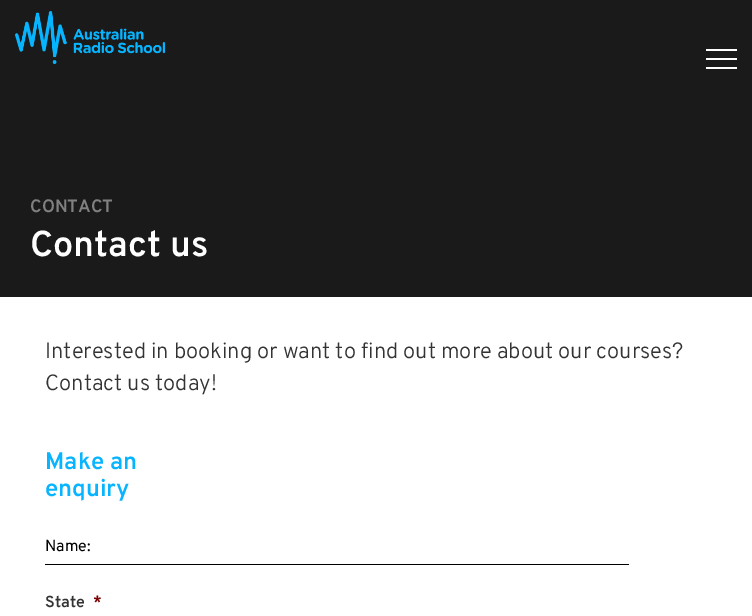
%!PS-Adobe-3.0
%%BoundingBox: 0 0 752 616
%%LanguageLevel: 3
%%Pages: 1
%%EndComments
%%BeginProlog
/drawimage { 5 dict begin { /h /w /y /x /name } { exch def } forall
  gsave x y translate w h scale
  w h 8 [w 0 0 h 0 0] name (r) file false 3 colorimage grestore end } def
%%EndProlog
%%BeginSetup
<< /PageSize [752 616] >> setpagedevice
%%EndSetup
%%Page: 1 1
0 616 translate 1 -1 scale
4 setmiterlimit
1 setgray
0 0 752 616 rectfill
0.102 setgray
0 0 752 297 rectfill
(images/1.raw) 15 11 150 53 drawimage
1 setgray
706 67 31 2 rectfill
706 49 31 2 rectfill
706 58 31 2 rectfill
0 setgray
45 564 584 1 rectfill
/Overpass-SemiBold [18 0 0 -18 0 0] selectfont
0.502 setgray
30 212 moveto (CONTACT) show
/Overpass-SemiBold [36 0 0 -36 0 0] selectfont
1 setgray
30 256 moveto (Contact us) show
/Overpass-Light [22 0 0 -22 0 0] selectfont
0.2 setgray
45 358 moveto (Interested in booking or want to find out more about our courses?) show
45 390 moveto (Contact us today!) show
/Overpass-SemiBold [24 0 0 -24 0 0] selectfont
0.024 0.706 1 setrgbcolor
45 469 moveto (Make an) show
45 496 moveto (enquiry) show
/Overpass-Regular [16 0 0 -16 0 0] selectfont
0 setgray
45 551 moveto (Name:) show
/Overpass-SemiBold [16 0 0 -16 0 0] selectfont
0.2 setgray
45 607 moveto (State) show
0.475 0 0 setrgbcolor
93 607 moveto (*) show
showpage
%%EOF
